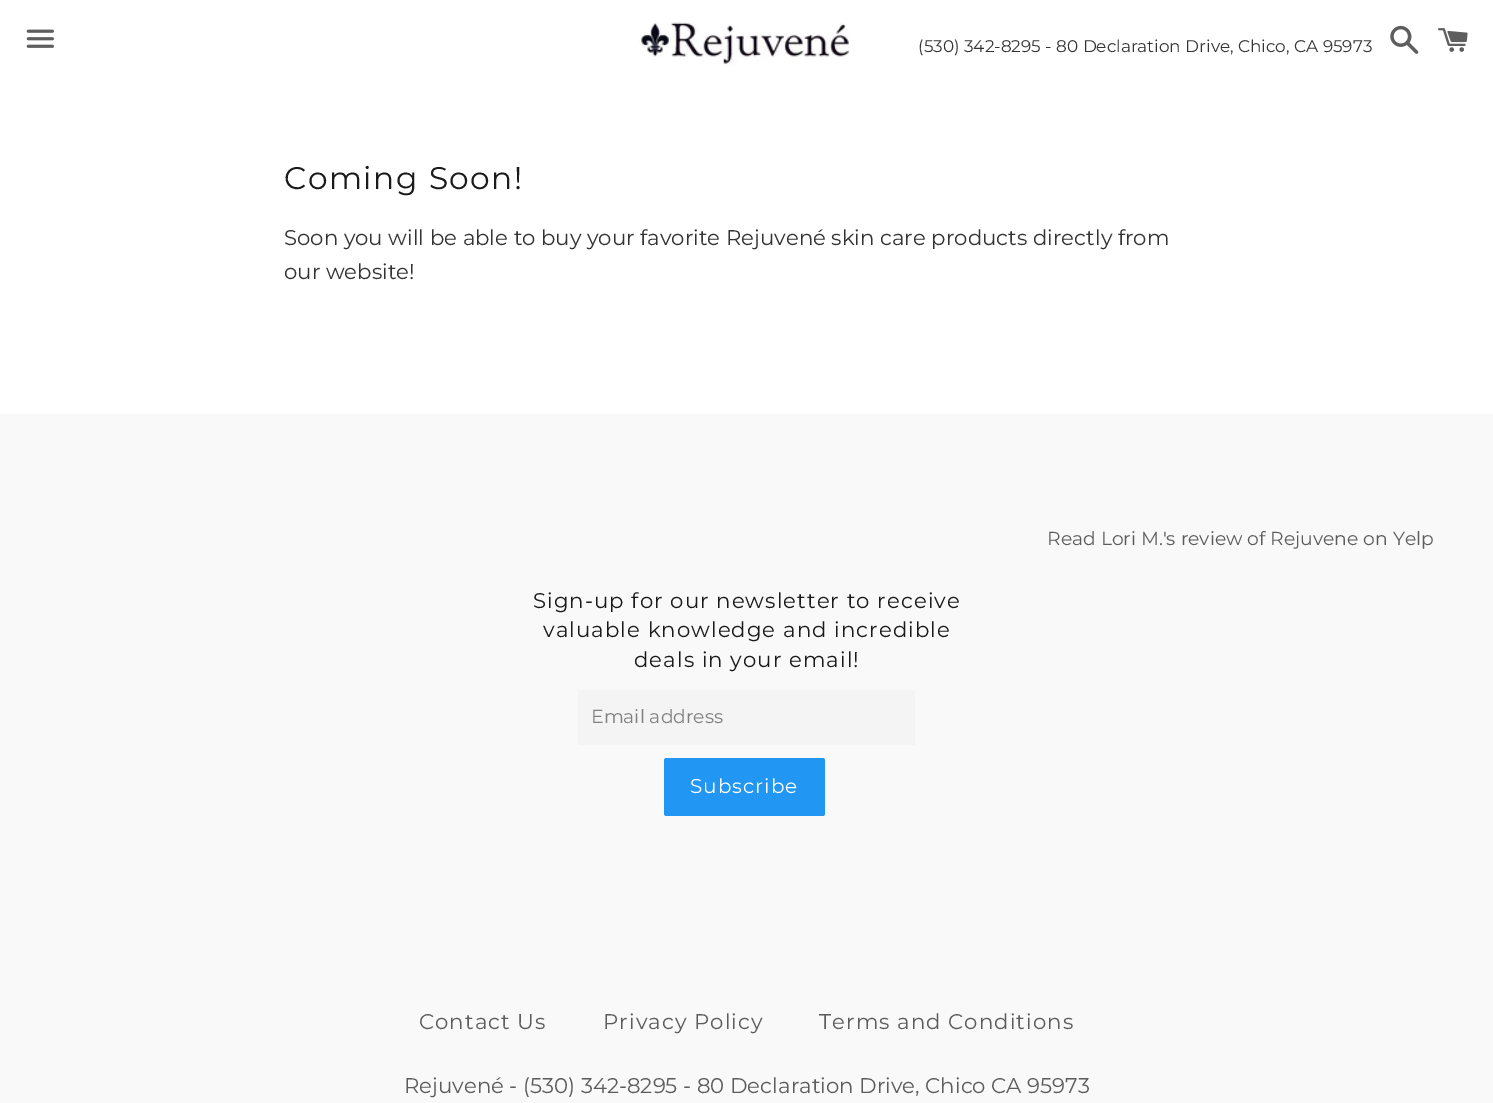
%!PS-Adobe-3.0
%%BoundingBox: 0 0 1493 1103
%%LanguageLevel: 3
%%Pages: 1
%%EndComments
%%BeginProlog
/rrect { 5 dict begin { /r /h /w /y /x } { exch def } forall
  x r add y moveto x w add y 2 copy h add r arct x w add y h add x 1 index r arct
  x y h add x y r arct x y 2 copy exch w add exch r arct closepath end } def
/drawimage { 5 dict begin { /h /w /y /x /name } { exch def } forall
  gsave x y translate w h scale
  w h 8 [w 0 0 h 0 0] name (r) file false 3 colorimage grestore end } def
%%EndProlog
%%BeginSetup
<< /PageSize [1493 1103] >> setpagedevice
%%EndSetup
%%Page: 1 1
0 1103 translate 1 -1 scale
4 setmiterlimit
1 setgray
0 0 1493 1103 rectfill
(images/1.raw) 26 29 28 19 drawimage
(images/2.raw) 639 22 210 44 drawimage
(images/3.raw) 1390 25 29 29 drawimage
(images/4.raw) 1438 28 30 24 drawimage
0.976 setgray
0 414 1493 689 rectfill
0.957 setgray
578 690 337 55 rectfill
0.129 0.588 0.953 setrgbcolor
664 758 161 58 2.5 rrect fill
/Montserrat-Thin [16.9 0 0 -16.9 0 0] selectfont
0.2 setgray
918 52 moveto (\(530\) 342-8295 - 80 Declaration Drive, Chico, CA 95973) show
/Montserrat-Thin [31.25 0 0 -31.25 0 0] selectfont
0.102 setgray
284 189 moveto 1.5 0 (Coming Soon!) ashow
/Montserrat-Thin [21.25 0 0 -21.25 0 0] selectfont
0.2 setgray
284 245 moveto (Soon you will be able to buy your favorite Rejuvené skin care products directly from) show
284 279 moveto (our website!) show
/Montserrat-Thin [18.75 0 0 -18.75 0 0] selectfont
0.361 setgray
1047 545 moveto (Read Lori M.'s review of Rejuvene on Yelp) show
/Montserrat-Thin [21.25 0 0 -21.25 0 0] selectfont
0.102 setgray
533 608 moveto 1.05 0 (Sign-up for our newsletter to receive) ashow
543 637 moveto 1.05 0 (valuable knowledge and incredible) ashow
634 667 moveto 1.05 0 (deals in your email!) ashow
/Montserrat-Thin [18.75 0 0 -18.75 0 0] selectfont
0.502 setgray
591 723 moveto (Email address) show
/Montserrat-Thin [20 0 0 -20 0 0] selectfont
1 setgray
690 793 moveto 1 0 (Subscribe) ashow
/Montserrat-Thin [21.25 0 0 -21.25 0 0] selectfont
0.361 setgray
419 1029 moveto 1.05 0 (Contact Us) ashow
603 1029 moveto 1.05 0 (Privacy Policy) ashow
819 1029 moveto 1.05 0 (Terms and Conditions) ashow
404 1093 moveto (Rejuvené - \(530\) 342-8295 - 80 Declaration Drive, Chico CA 95973) show
showpage
%%EOF
